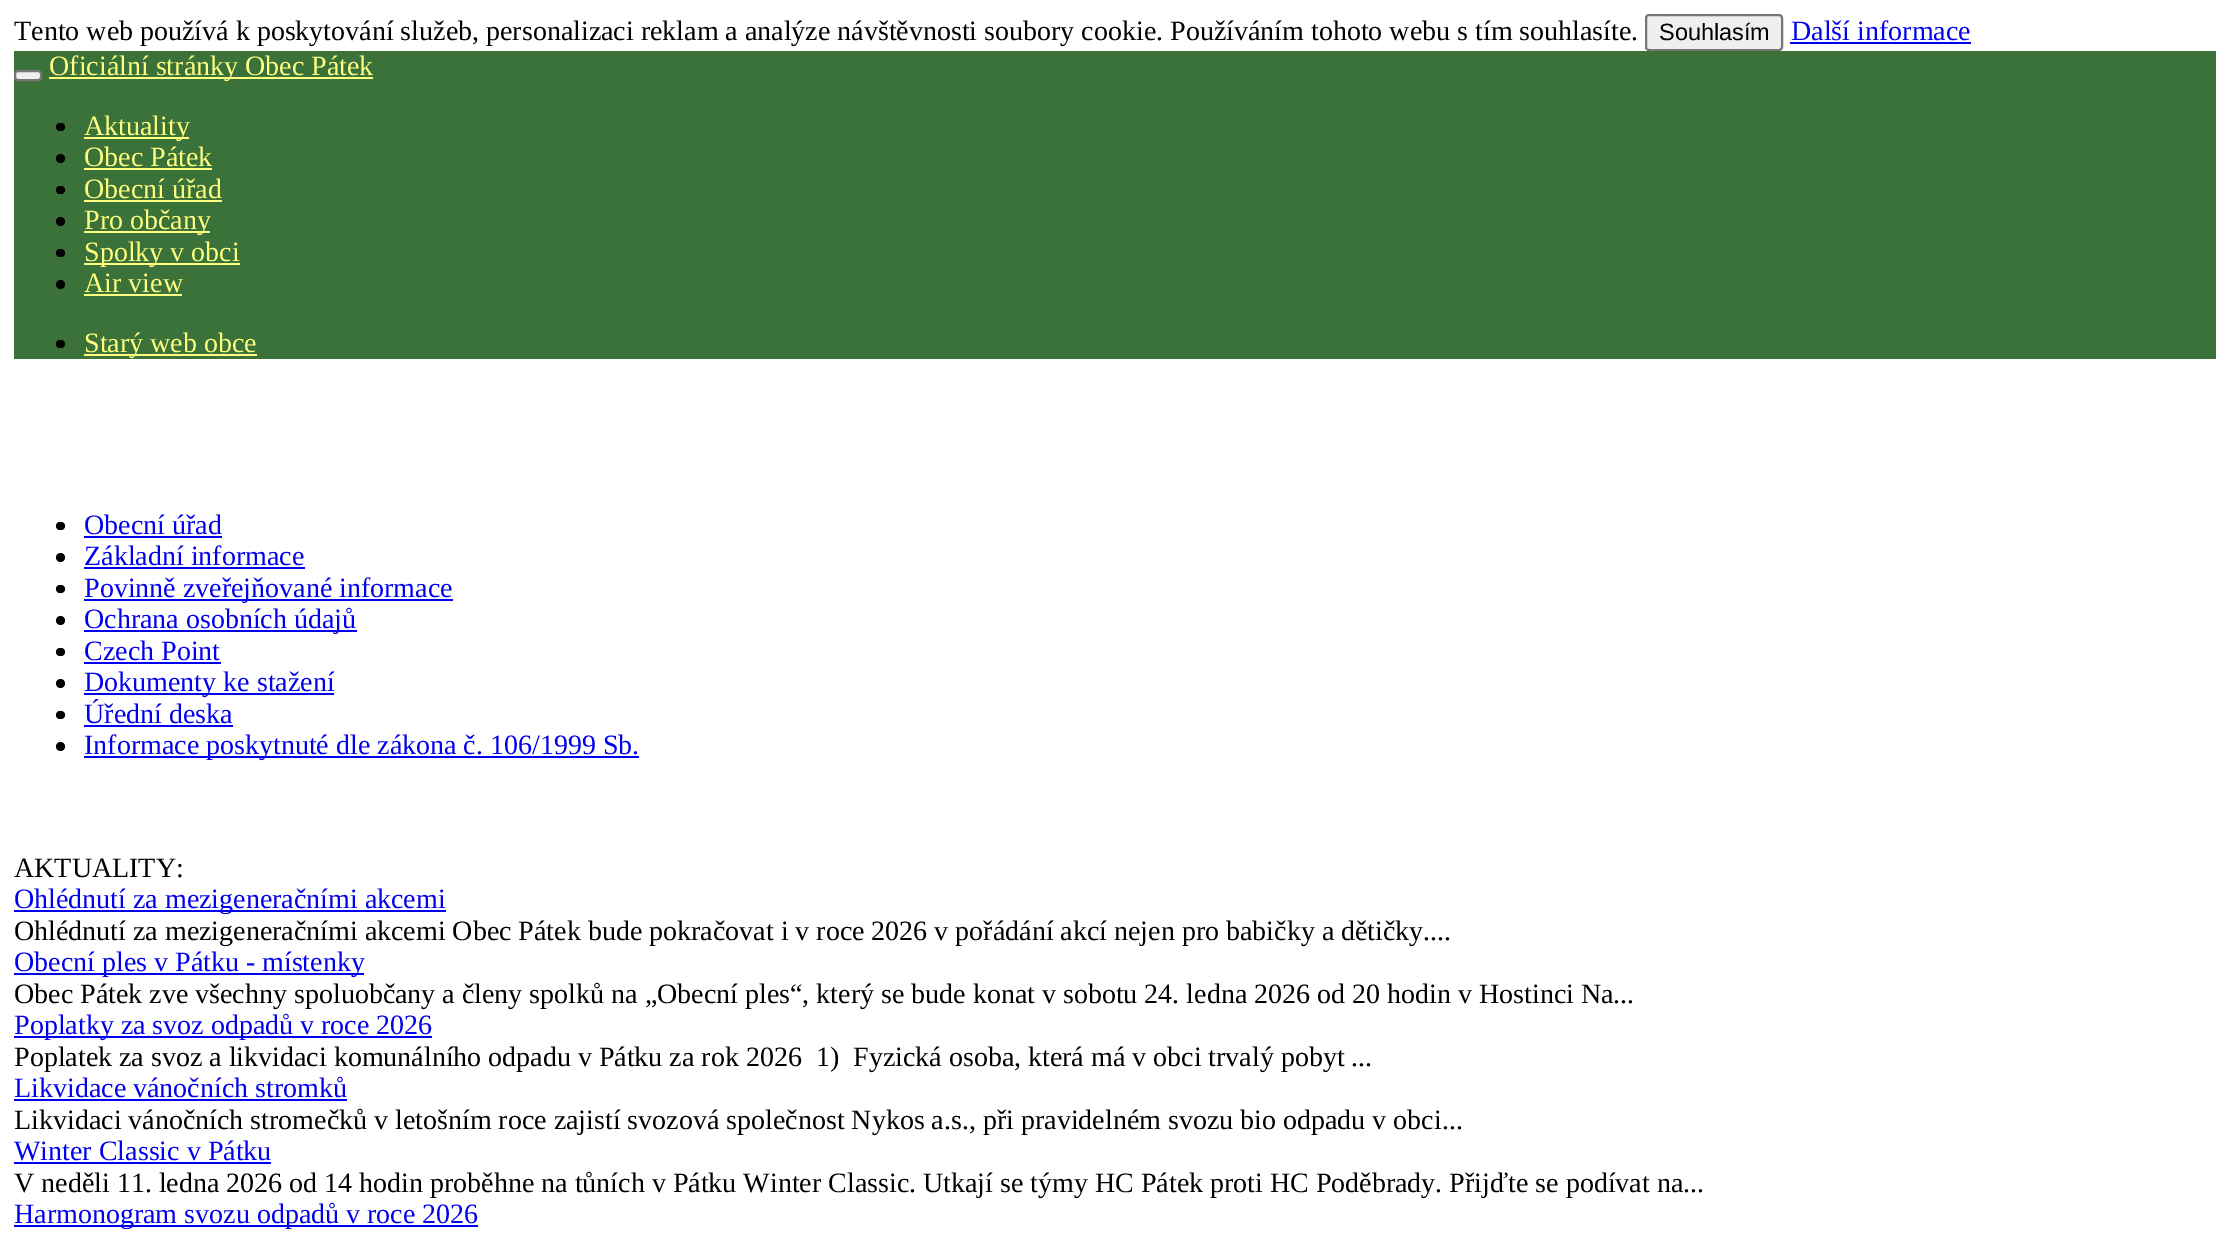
%!PS-Adobe-3.0
%%BoundingBox: 0 0 2229 1241
%%LanguageLevel: 3
%%Pages: 1
%%EndComments
%%BeginProlog
/rrect { 5 dict begin { /r /h /w /y /x } { exch def } forall
  x r add y moveto x w add y 2 copy h add r arct x w add y h add x 1 index r arct
  x y h add x y r arct x y 2 copy exch w add exch r arct closepath end } def
%%EndProlog
%%BeginSetup
<< /PageSize [2229 1241] >> setpagedevice
%%EndSetup
%%Page: 1 1
0 1241 translate 1 -1 scale
4 setmiterlimit
1 setgray
0 0 2229 1241 rectfill
0.937 setgray
1646 15 136 35 3 rrect gsave fill grestore
0.463 setgray
2 setlinewidth
stroke
0 0 0.933 setrgbcolor
1790 42 181 2 rectfill
0.227 0.447 0.227 setrgbcolor
14 51 2202 308 rectfill
0.937 setgray
15 71 26 9 3 rrect gsave fill grestore
0.463 setgray
stroke
1 1 0.502 setrgbcolor
49 77 324 2 rectfill
0 setgray
56 123 9 8 4 rrect fill
1 1 0.502 setrgbcolor
84 137 105 2 rectfill
0 setgray
newpath 60.5 158.5 4.5 0 360 arc closepath fill
1 1 0.502 setrgbcolor
84 168 128 2 rectfill
0 setgray
56 186 9 8 4 rrect fill
1 1 0.502 setrgbcolor
84 200 138 2 rectfill
0 setgray
newpath 60.5 221.5 4.5 0 360 arc closepath fill
1 1 0.502 setrgbcolor
84 231 126 2 rectfill
0 setgray
56 249 9 8 4 rrect fill
1 1 0.502 setrgbcolor
84 263 156 2 rectfill
0 setgray
newpath 60.5 284.5 4.5 0 360 arc closepath fill
1 1 0.502 setrgbcolor
84 294 98 2 rectfill
0 setgray
56 340 9 8 4 rrect fill
1 1 0.502 setrgbcolor
84 354 173 2 rectfill
0 setgray
56 522 9 8 4 rrect fill
0 0 0.933 setrgbcolor
84 536 138 2 rectfill
0 setgray
newpath 60.5 557.5 4.5 0 360 arc closepath fill
0 0 0.933 setrgbcolor
84 567 221 2 rectfill
0 setgray
56 585 9 8 4 rrect fill
0 0 0.933 setrgbcolor
84 599 369 2 rectfill
0 setgray
newpath 60.5 620.5 4.5 0 360 arc closepath fill
0 0 0.933 setrgbcolor
84 630 273 2 rectfill
0 setgray
56 648 9 8 4 rrect fill
0 0 0.933 setrgbcolor
84 662 137 2 rectfill
0 setgray
newpath 60.5 683.5 4.5 0 360 arc closepath fill
0 0 0.933 setrgbcolor
84 693 250 2 rectfill
0 setgray
56 711 9 8 4 rrect fill
0 0 0.933 setrgbcolor
84 725 149 2 rectfill
0 setgray
newpath 60.5 746.5 4.5 0 360 arc closepath fill
0 0 0.933 setrgbcolor
84 756 555 2 rectfill
14 910 432 2 rectfill
14 973 350 2 rectfill
14 1036 418 2 rectfill
14 1099 333 2 rectfill
14 1162 257 2 rectfill
14 1225 464 2 rectfill
/LiberationSerif-Regular [28 0 0 -28 0 0] selectfont
0 setgray
14 40 moveto (Tento web používá k poskytování služeb, personalizaci reklam a analýze návštěvnosti soubory cookie. Používáním tohoto webu s tím souhlasíte.) show
/LiberationSans-Regular [23.5 0 0 -23.5 0 0] selectfont
1659 40 moveto (Souhlasím) show
/LiberationSerif-Regular [28 0 0 -28 0 0] selectfont
0 0 0.933 setrgbcolor
1791 40 moveto (Další informace) show
1 1 0.502 setrgbcolor
49 75 moveto (Oficiální stránky Obec Pátek) show
84 135 moveto (Aktuality) show
84 166 moveto (Obec Pátek) show
84 198 moveto (Obecní úřad) show
84 229 moveto (Pro občany) show
84 261 moveto (Spolky v obci) show
84 292 moveto (Air view) show
84 352 moveto (Starý web obce) show
0 0 0.933 setrgbcolor
84 534 moveto (Obecní úřad) show
84 565 moveto (Základní informace) show
84 597 moveto (Povinně zveřejňované informace) show
84 628 moveto (Ochrana osobních údajů) show
84 660 moveto (Czech Point) show
84 691 moveto (Dokumenty ke stažení) show
84 723 moveto (Úřední deska) show
84 754 moveto (Informace poskytnuté dle zákona č. 106/1999 Sb.) show
0 setgray
14 877 moveto (AKTUALITY:) show
0 0 0.933 setrgbcolor
14 908 moveto (Ohlédnutí za mezigeneračními akcemi) show
0 setgray
14 940 moveto (Ohlédnutí za mezigeneračními akcemi Obec Pátek bude pokračovat i v roce 2026 v pořádání akcí nejen pro babičky a dětičky....) show
0 0 0.933 setrgbcolor
14 971 moveto (Obecní ples v Pátku - místenky) show
0 setgray
14 1003 moveto (Obec Pátek zve všechny spoluobčany a členy spolků na „Obecní ples“, který se bude konat v sobotu 24. ledna 2026 od 20 hodin v Hostinci Na...) show
0 0 0.933 setrgbcolor
14 1034 moveto (Poplatky za svoz odpadů v roce 2026) show
0 setgray
14 1066 moveto (Poplatek za svoz a likvidaci komunálního odpadu v Pátku za rok 2026  1\)  Fyzická osoba, která má v obci trvalý pobyt ...) show
0 0 0.933 setrgbcolor
14 1097 moveto (Likvidace vánočních stromků) show
0 setgray
14 1129 moveto (Likvidaci vánočních stromečků v letošním roce zajistí svozová společnost Nykos a.s., při pravidelném svozu bio odpadu v obci...) show
0 0 0.933 setrgbcolor
14 1160 moveto (Winter Classic v Pátku) show
0 setgray
14 1192 moveto (V neděli 11. ledna 2026 od 14 hodin proběhne na tůních v Pátku Winter Classic. Utkají se týmy HC Pátek proti HC Poděbrady. Přijďte se podívat na...) show
0 0 0.933 setrgbcolor
14 1223 moveto (Harmonogram svozu odpadů v roce 2026) show
showpage
%%EOF
